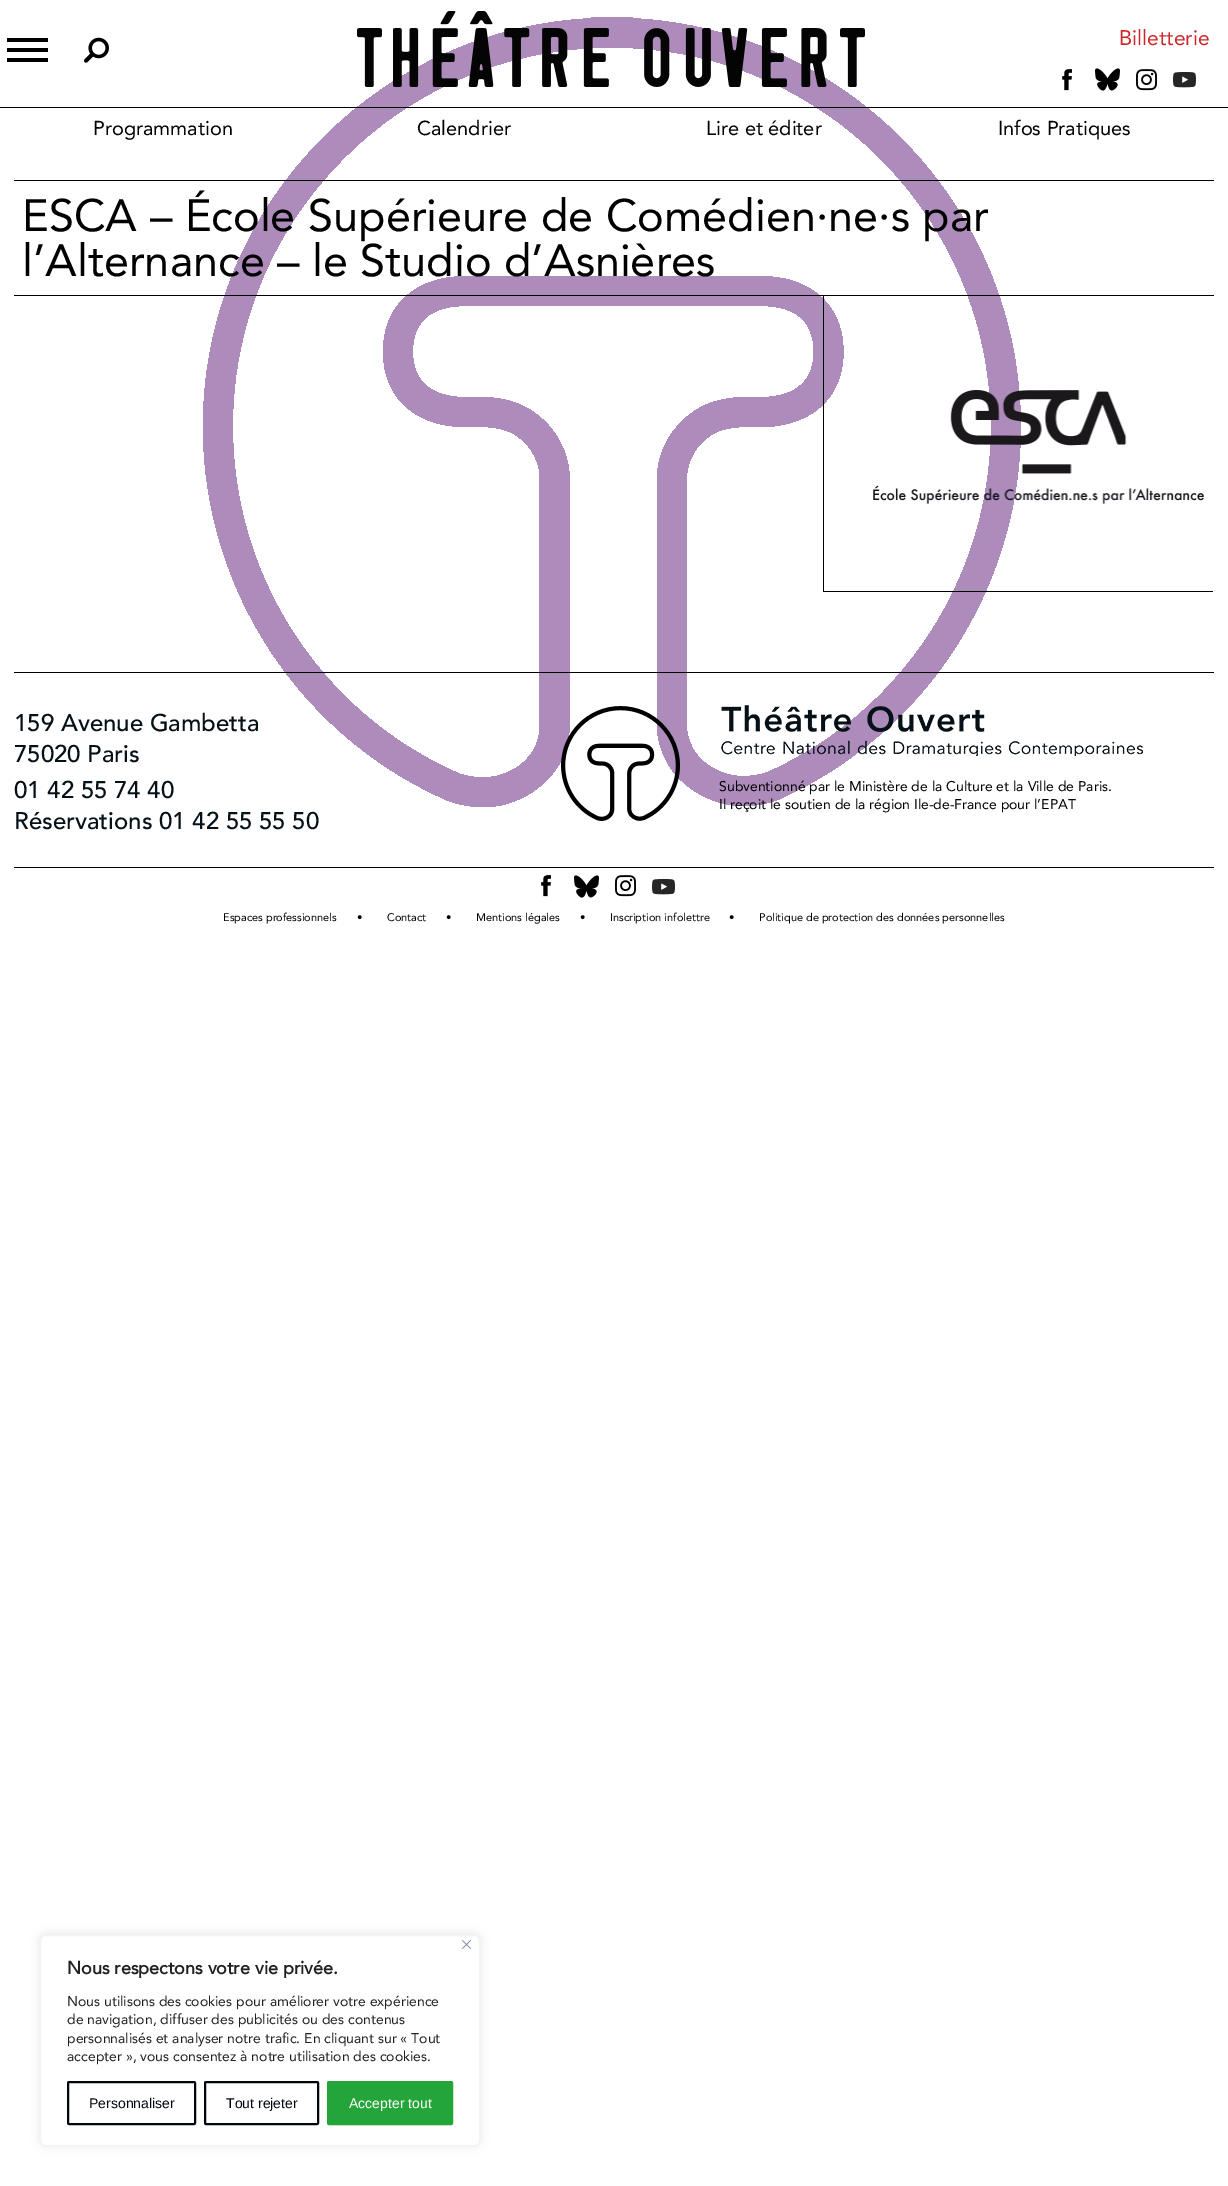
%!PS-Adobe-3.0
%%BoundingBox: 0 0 1228 2186
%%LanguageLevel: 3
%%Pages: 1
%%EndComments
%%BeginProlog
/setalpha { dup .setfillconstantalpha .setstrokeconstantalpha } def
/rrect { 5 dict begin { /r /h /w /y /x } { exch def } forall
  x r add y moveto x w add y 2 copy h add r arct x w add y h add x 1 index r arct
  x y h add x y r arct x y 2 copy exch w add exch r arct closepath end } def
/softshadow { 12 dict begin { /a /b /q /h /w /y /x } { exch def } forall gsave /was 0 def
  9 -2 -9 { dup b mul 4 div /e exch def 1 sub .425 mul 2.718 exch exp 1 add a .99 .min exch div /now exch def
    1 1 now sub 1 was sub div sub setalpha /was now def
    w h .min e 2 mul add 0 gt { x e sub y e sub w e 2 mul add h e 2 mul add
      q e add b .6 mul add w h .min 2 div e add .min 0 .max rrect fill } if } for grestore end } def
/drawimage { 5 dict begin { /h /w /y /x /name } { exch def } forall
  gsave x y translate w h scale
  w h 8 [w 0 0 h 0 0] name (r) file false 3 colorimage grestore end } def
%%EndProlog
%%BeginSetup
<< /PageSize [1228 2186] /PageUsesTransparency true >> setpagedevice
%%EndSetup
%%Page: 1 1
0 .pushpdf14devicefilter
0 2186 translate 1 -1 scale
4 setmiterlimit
1 setgray
0 0 1228 2186 rectfill
(images/1.raw) 203 17 818 790 drawimage
0 setgray
0 107 1228 1 rectfill
7 48 41 4 rectfill
7 38 41 4 rectfill
7 58 41 4 rectfill
(images/2.raw) 84 37 25 26 drawimage
(images/3.raw) 357 11 508 76 drawimage
(images/4.raw) 1062 69 10 22 drawimage
(images/5.raw) 1095 68 25 23 drawimage
(images/6.raw) 1136 69 21 22 drawimage
(images/7.raw) 1173 71 23 17 drawimage
14 180 1200 1 rectfill
14 295 1200 1 rectfill
823 296 1 296 rectfill
(images/8.raw) 873 390 332 114 drawimage
824 591 389 1 rectfill
14 672 1200 1 rectfill
14 867 1200 1 rectfill
(images/9.raw) 561 706 119 115 drawimage
(images/10.raw) 721 705 422 51 drawimage
(images/4.raw) 541 875 10 22 drawimage
(images/5.raw) 574 875 25 23 drawimage
(images/6.raw) 615 875 21 22 drawimage
(images/7.raw) 652 878 23 17 drawimage
0.675 0.671 0.671 setrgbcolor
40 1934 440 211 6 5 0.3 softshadow
1 setgray
40.5 1935.5 439 210 5.5 rrect gsave fill grestore
0.957 setgray
stroke
(images/11.raw) 462 1940 9 9 drawimage
0.004 0.024 0.055 setrgbcolor
2 setlinewidth
68 2082 127 42 1 rrect stroke
205 2082 113 42 1 rrect stroke
0.137 0.647 0.227 setrgbcolor
328 2082 124 42 1 rrect gsave fill grestore
stroke
/Avenir-Regular [21 0 0 -21 0 0] selectfont
0.804 0.153 0.161 setrgbcolor
1119 45 moveto (Billetterie) show
/Avenir-Regular [20 0 0 -20 0 0] selectfont
0 setgray
93 135 moveto (Programmation) show
417 135 moveto (Calendrier) show
706 135 moveto (Lire et éditer) show
998 135 moveto (Infos Pratiques) show
/Avenir-Regular [45 0 0 -45 0 0] selectfont
22 231 moveto (ESCA – École Supérieure de Comédien·ne·s par) show
22 276 moveto (l’Alternance – le Studio d’Asnières) show
/Avenir-Medium [24 0 0 -24 0 0] selectfont
0.02 0.063 0.09 setrgbcolor
14 731 moveto (159 Avenue Gambetta) show
14 762 moveto (75020 Paris) show
14 798 moveto (01 42 55 74 40) show
14 829 moveto (Réservations 01 42 55 55 50) show
/Avenir-Regular [14 0 0 -14 0 0] selectfont
0 setgray
719 791 moveto (Subventionné par le Ministère de la Culture et la Ville de Paris.) show
719 809 moveto (Il reçoit le soutien de la région Ile-de-France pour l’EPAT) show
/Avenir-Regular [11 0 0 -11 0 0] selectfont
223 921 moveto (Espaces professionnels) show
357 921 moveto (•) show
387 921 moveto (Contact) show
446 921 moveto (•) show
476 921 moveto (Mentions légales) show
580 921 moveto (•) show
610 921 moveto (Inscription infolettre) show
729 921 moveto (•) show
759 921 moveto (Politique de protection des données personnelles) show
/Avenir-Bold [18 0 0 -18 0 0] selectfont
0.129 setgray
67 1974 moveto (Nous respectons votre vie privée.) show
/Avenir-Regular [14 0 0 -14 0 0] selectfont
67 2006 moveto (Nous utilisons des cookies pour améliorer votre expérience) show
67 2024 moveto (de navigation, diffuser des publicités ou des contenus) show
67 2043 moveto (personnalisés et analyser notre trafic. En cliquant sur « Tout) show
67 2061 moveto (accepter », vous consentez à notre utilisation des cookies.) show
/LiberationSans-Regular [14 0 0 -14 0 0] selectfont
0.004 0.024 0.055 setrgbcolor
89 2108 moveto (Personnaliser) show
226 2108 moveto (Tout rejeter) show
1 setgray
349 2108 moveto (Accepter tout) show
.poppdf14devicefilter showpage
%%EOF
